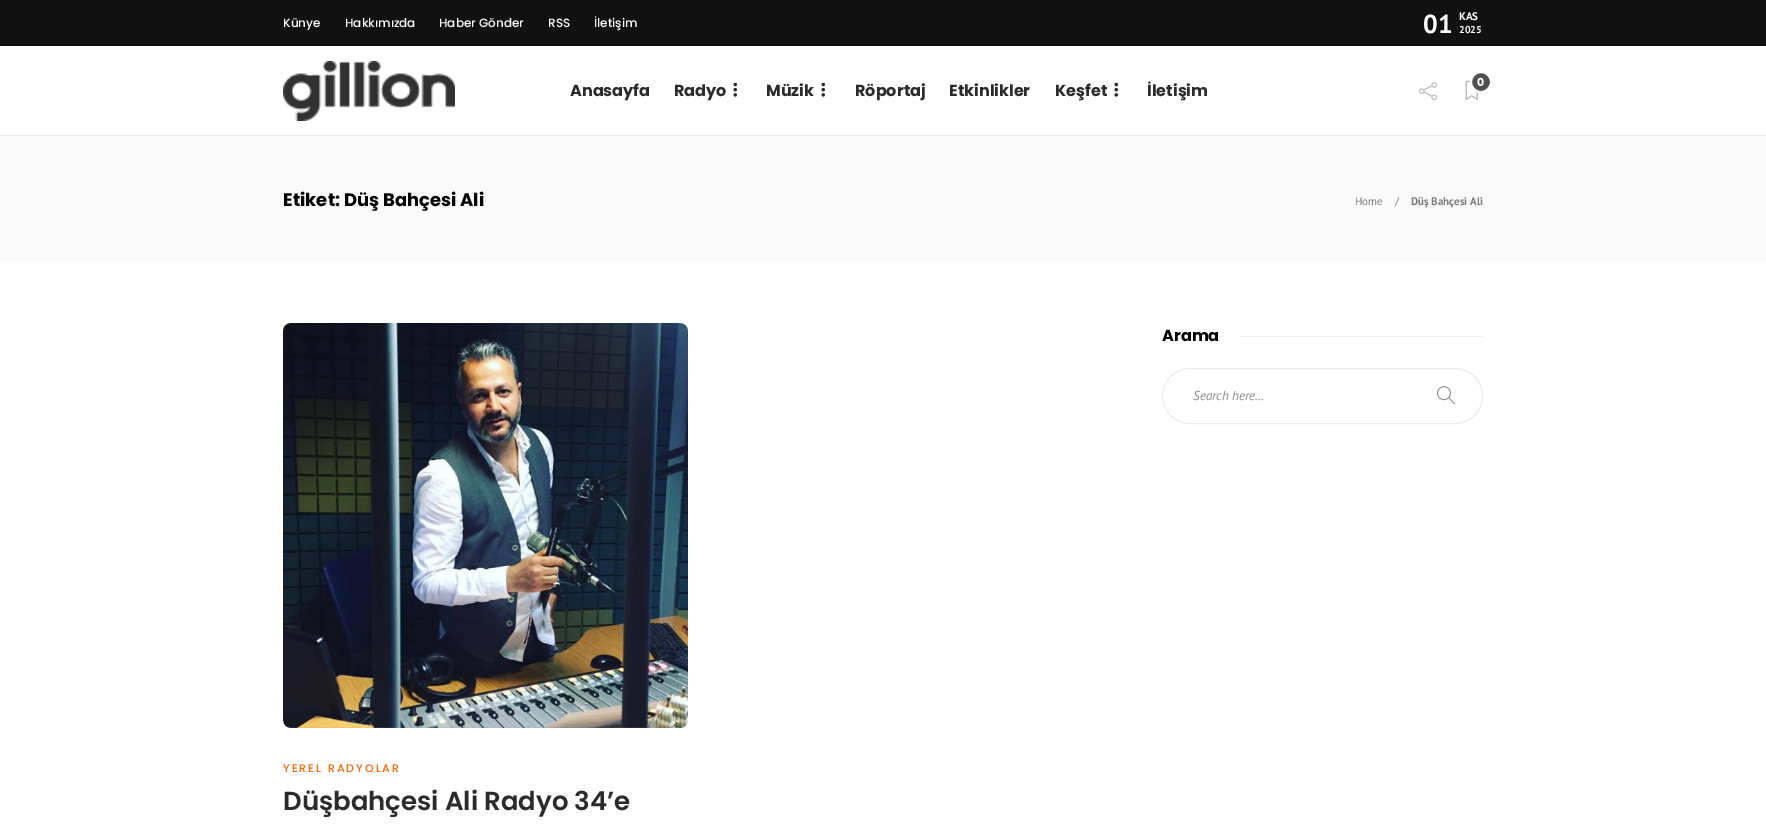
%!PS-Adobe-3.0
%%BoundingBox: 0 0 1766 826
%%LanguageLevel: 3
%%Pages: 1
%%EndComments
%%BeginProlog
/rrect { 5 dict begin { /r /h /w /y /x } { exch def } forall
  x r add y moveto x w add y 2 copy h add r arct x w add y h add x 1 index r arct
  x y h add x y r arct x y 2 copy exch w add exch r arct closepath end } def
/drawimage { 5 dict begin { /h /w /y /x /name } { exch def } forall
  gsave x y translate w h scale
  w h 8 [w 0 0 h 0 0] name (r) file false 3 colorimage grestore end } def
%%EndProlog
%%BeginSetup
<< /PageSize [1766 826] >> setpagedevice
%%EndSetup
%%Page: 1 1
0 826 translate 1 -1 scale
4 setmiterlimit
1 setgray
0 0 1766 826 rectfill
0.067 setgray
0 0 1766 46 rectfill
0.922 setgray
0 135 1766 1 rectfill
(images/1.raw) 283 61 172 60 drawimage
(images/2.raw) 733 82 4 15 drawimage
(images/2.raw) 821 82 4 15 drawimage
(images/2.raw) 1114 82 4 15 drawimage
(images/3.raw) 1419 82 18 19 drawimage
(images/4.raw) 1465 80 13 21 drawimage
0.314 setgray
newpath 1481 82 10 0 360 arc closepath gsave fill grestore
1 setgray
2 setlinewidth
stroke
0.98 setgray
0 136 1766 127 rectfill
0.941 setgray
1239 336 244 1 rectfill
0.929 setgray
1 setlinewidth
1162.5 368.5 320 55 27.5 rrect stroke
(images/5.raw) 1437 386 18 19 drawimage
(images/6.raw) 283 323 405 405 drawimage
/Poppins-Medium [12 0 0 -12 0 0] selectfont
1 setgray
283 27 moveto (Künye) show
345 27 moveto (Hakkımızda) show
439 27 moveto (Haber Gönder) show
548 27 moveto (RSS) show
594 27 moveto (İletişim) show
/PTSans-Bold [26 0 0 -26 0 0] selectfont
1423 33 moveto (01) show
/PTSans-Bold [11 0 0 -11 0 0] selectfont
1459 20 moveto (KAS) show
/PTSans-Bold [10 0 0 -10 0 0] selectfont
1459 33 moveto (2025) show
/Poppins-Bold [16 0 0 -16 0 0] selectfont
0.169 setgray
570 96 moveto (Anasayfa) show
674 96 moveto (Radyo) show
766 96 moveto (Müzik) show
855 96 moveto (Röportaj) show
949 96 moveto (Etkinlikler) show
1055 96 moveto (Keşfet) show
1147 96 moveto (İletişim) show
/Poppins-Bold [11 0 0 -11 0 0] selectfont
1 setgray
1477 86 moveto (0) show
/Poppins-Bold [18 0 0 -18 0 0] selectfont
0 setgray
283 206 moveto (Etiket: Düş Bahçesi Ali) show
/PTSans-Regular [11 0 0 -11 0 0] selectfont
0.478 setgray
1355 205 moveto (Home) show
1395 205 moveto (/) show
/PTSans-Bold [11 0 0 -11 0 0] selectfont
1411 205 moveto (Düş Bahçesi Ali) show
/Poppins-Bold [16 0 0 -16 0 0] selectfont
0 setgray
1162 341 moveto (Arama) show
/PTSans-Italic [13 0 0 -13 0 0] selectfont
0.553 setgray
1193 400 moveto (Search here...) show
/Poppins-Medium [11 0 0 -11 0 0] selectfont
1 0.4 0 setrgbcolor
283 772 moveto 2 0 (YEREL RADYOLAR) ashow
/Poppins-SemiBold [26 0 0 -26 0 0] selectfont
0.169 setgray
283 810 moveto (Düşbahçesi Ali Radyo 34’e) show
showpage
%%EOF
